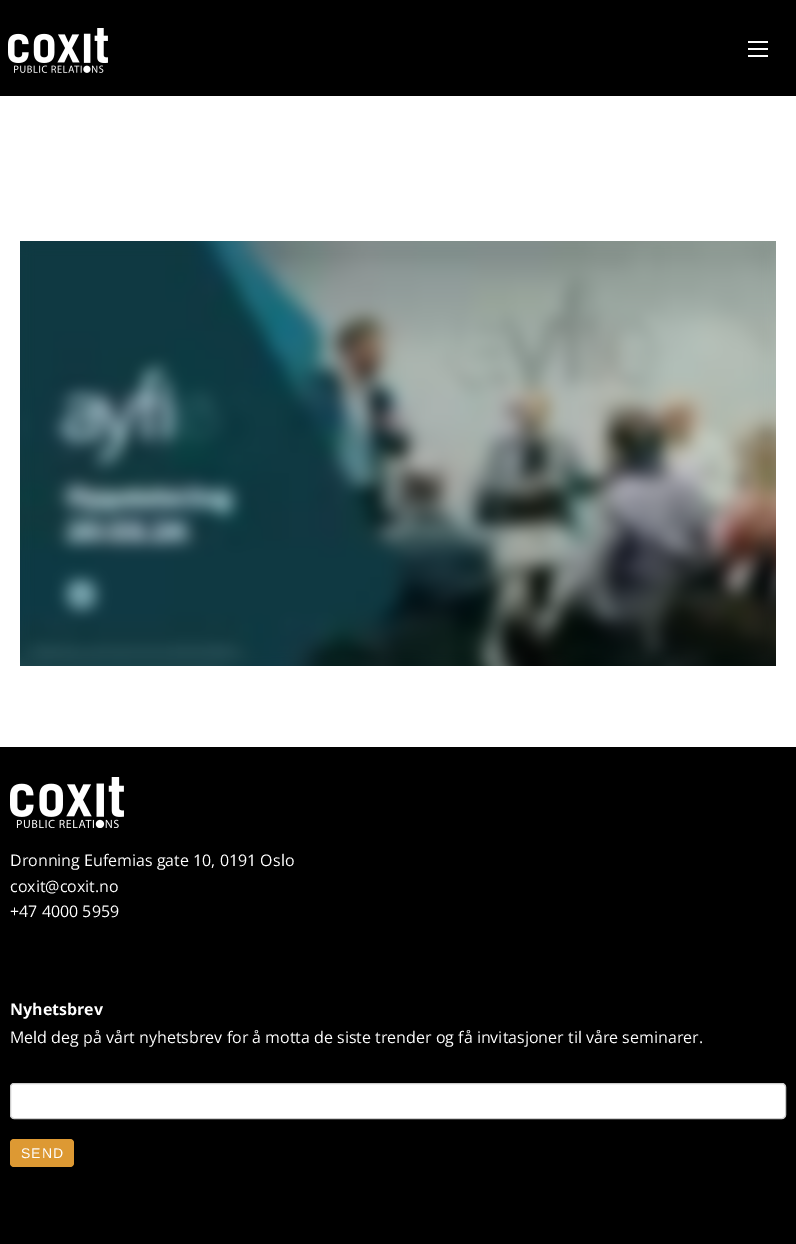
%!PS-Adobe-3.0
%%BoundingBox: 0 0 796 1244
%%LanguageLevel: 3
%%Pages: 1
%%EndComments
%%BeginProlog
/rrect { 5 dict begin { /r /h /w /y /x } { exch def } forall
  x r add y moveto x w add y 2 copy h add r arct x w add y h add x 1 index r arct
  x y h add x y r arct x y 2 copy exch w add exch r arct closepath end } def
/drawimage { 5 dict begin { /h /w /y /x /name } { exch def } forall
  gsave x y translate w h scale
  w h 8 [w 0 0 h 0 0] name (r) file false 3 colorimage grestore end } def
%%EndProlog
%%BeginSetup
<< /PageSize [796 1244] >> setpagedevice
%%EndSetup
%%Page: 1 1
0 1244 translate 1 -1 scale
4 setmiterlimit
1 setgray
0 0 796 1244 rectfill
0 setgray
0 0 796 96 rectfill
(images/1.raw) 8 28 100 45 drawimage
0.996 setgray
748 55 20 2 rectfill
748 48 20 2 rectfill
748 41 20 2 rectfill
(images/2.raw) 20 241 756 425 drawimage
0 setgray
0 747 796 497 rectfill
(images/3.raw) 10 777 114 51 drawimage
1 setgray
10.5 1083.5 775 35 3.5 rrect gsave fill grestore
0.8 setgray
stroke
0.867 0.6 0.2 setrgbcolor
10 1139 64 28 4 rrect fill
/OpenSans-Regular [16 0 0 -16 0 0] selectfont
1 setgray
10 866 moveto (Dronning Eufemias gate 10, 0191 Oslo) show
10 892 moveto (coxit@coxit.no) show
10 917 moveto (+47 4000 5959) show
/OpenSans-Bold [16 0 0 -16 0 0] selectfont
10 1015 moveto (Nyhetsbrev) show
/OpenSans-Regular [16 0 0 -16 0 0] selectfont
10 1043 moveto (Meld deg på vårt nyhetsbrev for å motta de siste trender og få invitasjoner til våre seminarer.) show
/LiberationSans-Regular [14 0 0 -14 0 0] selectfont
21 1158 moveto 1 0 (SEND) ashow
showpage
%%EOF
